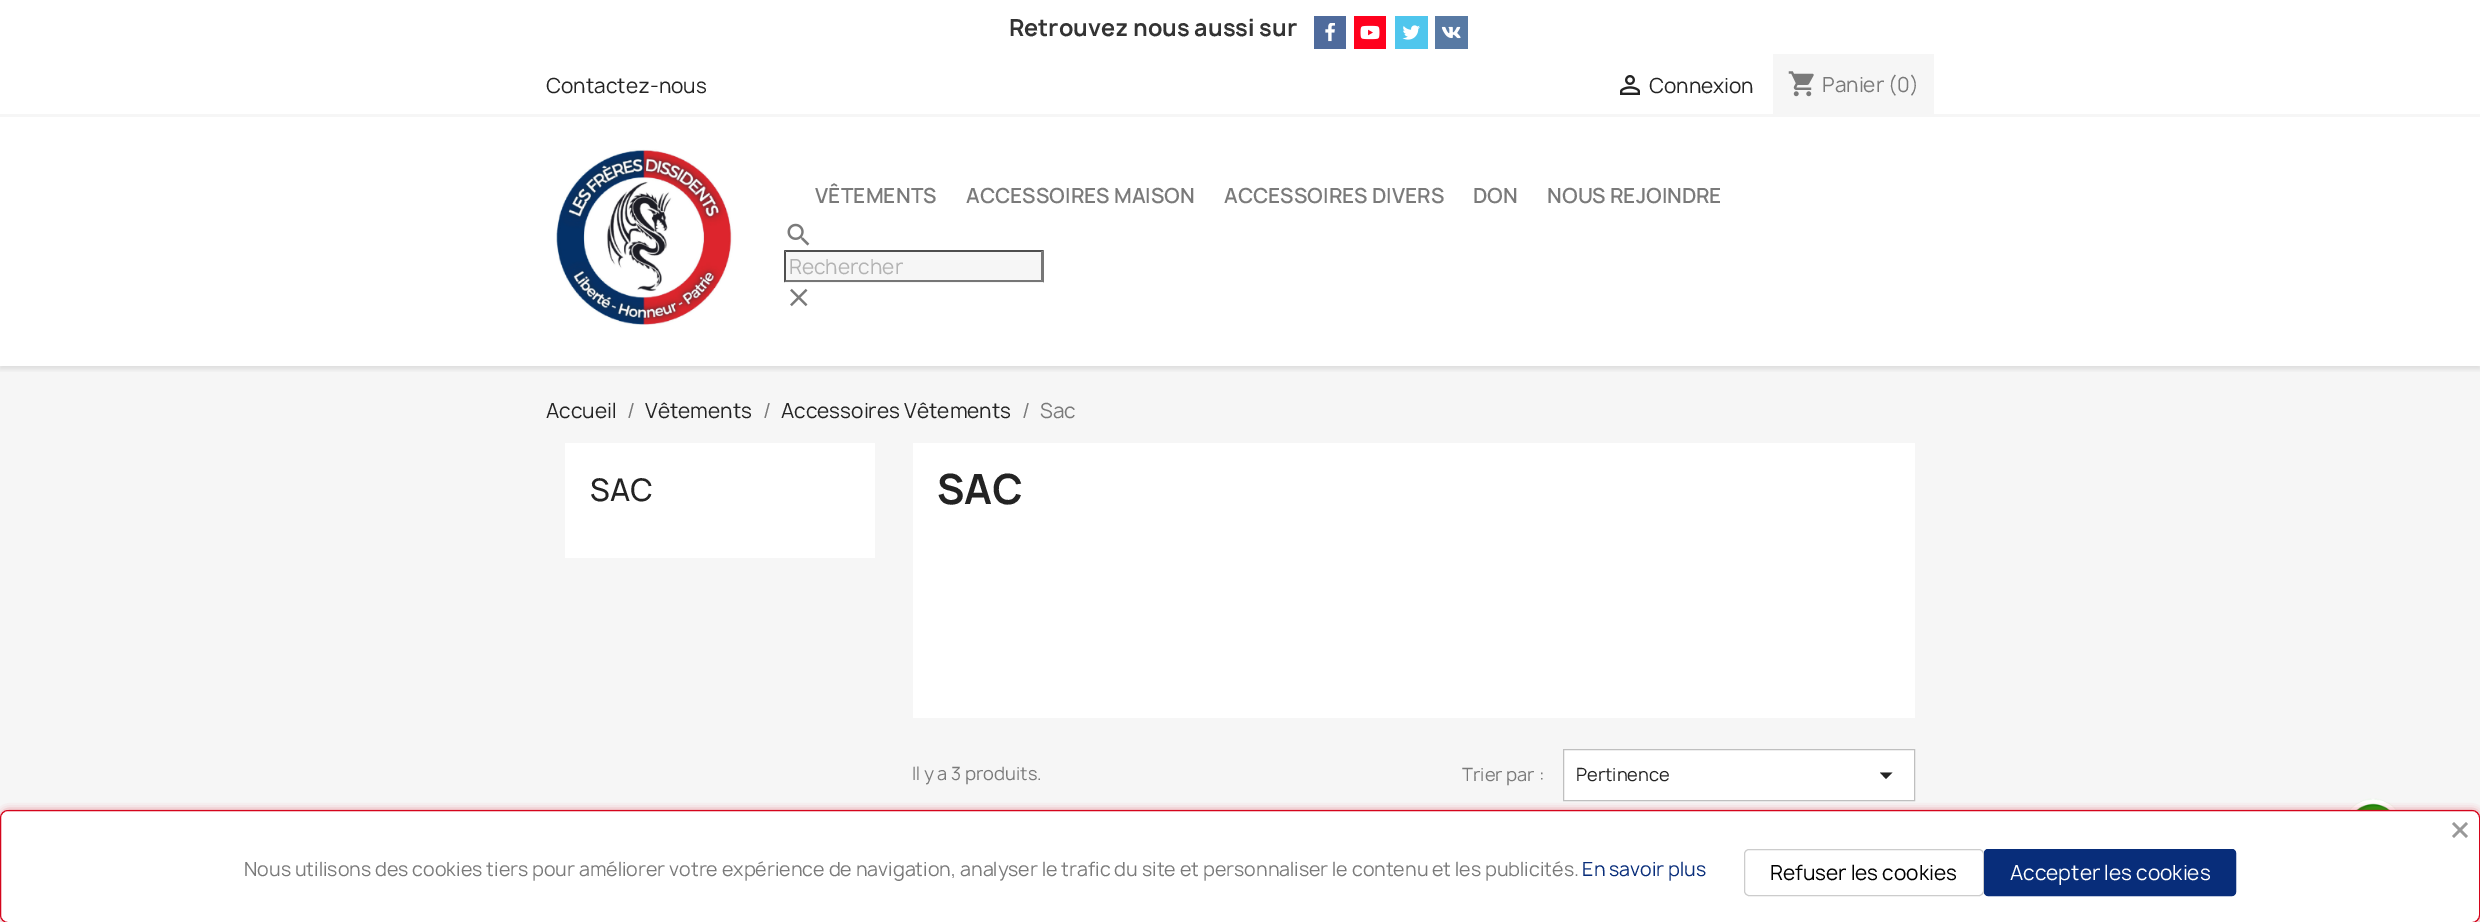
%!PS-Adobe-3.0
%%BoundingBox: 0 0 2480 922
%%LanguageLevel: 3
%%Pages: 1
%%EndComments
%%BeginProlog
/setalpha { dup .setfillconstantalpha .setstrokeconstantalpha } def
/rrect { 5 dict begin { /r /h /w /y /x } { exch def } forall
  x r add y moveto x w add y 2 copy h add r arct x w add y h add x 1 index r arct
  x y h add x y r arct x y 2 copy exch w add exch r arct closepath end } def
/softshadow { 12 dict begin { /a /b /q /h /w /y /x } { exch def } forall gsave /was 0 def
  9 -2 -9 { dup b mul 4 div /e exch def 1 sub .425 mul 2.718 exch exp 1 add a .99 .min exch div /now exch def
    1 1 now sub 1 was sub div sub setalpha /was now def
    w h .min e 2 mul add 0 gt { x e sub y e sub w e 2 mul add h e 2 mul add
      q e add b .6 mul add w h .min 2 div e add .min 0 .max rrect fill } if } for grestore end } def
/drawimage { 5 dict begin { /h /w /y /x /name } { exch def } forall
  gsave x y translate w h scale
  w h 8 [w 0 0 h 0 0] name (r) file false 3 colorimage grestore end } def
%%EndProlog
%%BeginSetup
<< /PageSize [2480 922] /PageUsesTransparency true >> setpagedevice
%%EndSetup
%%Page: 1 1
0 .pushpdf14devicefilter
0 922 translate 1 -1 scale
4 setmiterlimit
1 setgray
0 0 2480 922 rectfill
0.31 0.42 0.612 setrgbcolor
1314 16 32 33 rectfill
(images/1.raw) 1325 23 10 19 drawimage
1 0.004 0.114 setrgbcolor
1354 16 32 33 rectfill
(images/2.raw) 1360 25 20 15 drawimage
0.31 0.776 0.929 setrgbcolor
1395 16 33 33 rectfill
(images/3.raw) 1402 25 18 15 drawimage
0.345 0.478 0.643 setrgbcolor
1435 16 33 33 rectfill
(images/4.raw) 1441 26 20 13 drawimage
0.965 setgray
0 366 2480 556 rectfill
gsave
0 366 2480 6 rectclip
0 setgray
0 56 2480 313 0 3 0.11 softshadow
grestore
0 114 2480 3 rectfill
(images/5.raw) 1620 75 20 20 drawimage
1773 54 161 60 rectfill
(images/6.raw) 1788 71 26 26 drawimage
(images/7.raw) 556 149 177 176 drawimage
(images/8.raw) 787 223 23 23 drawimage
784 250 260 33 rectfill
0.31 setgray
newpath 784 250 moveto 1044 250 lineto 1041 252 lineto 786 252 lineto closepath fill
0.463 setgray
newpath 1044 250 moveto 1044 282.5 lineto 1041 280 lineto 1041 252.5 lineto closepath fill
newpath 1044 282 moveto 784 282 lineto 786 280 lineto 1041 280 lineto closepath fill
0.31 setgray
newpath 784 282.5 moveto 784 250 lineto 786 252.5 lineto 786 280 lineto closepath fill
(images/9.raw) 790 288 18 19 drawimage
1 setgray
565 443 310 115 rectfill
913 443 1002 275 rectfill
newpath 1563.5 749.5 moveto 1914.5 749.5 lineto 1914.5 800.5 lineto 1563.5 800.5 lineto closepath gsave fill grestore
0.749 setgray
stroke
0.137 setgray
newpath 1880 772.5 moveto 1892.5 772.5 lineto 1886 779 lineto closepath fill
(images/10.raw) 2349 798 48 12 drawimage
0.831 0.016 0.11 setrgbcolor
3 813 2475 107 5 4.5 1 softshadow
1 setgray
0.5 810.5 2479 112 7.5 rrect gsave fill grestore
0.831 0.016 0.11 setrgbcolor
stroke
0.6 setgray
newpath 2452 836 moveto 2466 822 lineto 2468 824 lineto 2454 838 lineto closepath fill
newpath 2454 822 moveto 2468 836 lineto 2466 838 lineto 2452 824 lineto closepath fill
0.8 setgray
1744.5 849.5 239 46 4.5 rrect stroke
0.031 0.176 0.478 setrgbcolor
1984.5 849.5 251 46 3.5 rrect gsave fill grestore
stroke
/Manrope-Bold [22.5 0 0 -22.5 0 0] selectfont
0.2 setgray
1009 36 moveto (Retrouvez nous aussi sur) show
/Manrope-Regular [20 0 0 -20 0 0] selectfont
0.137 setgray
546 93 moveto (Contactez-nous) show
1649 93 moveto (Connexion) show
0.478 setgray
1822 92 moveto (Panier \(0\)) show
/Manrope-SemiBold [20 0 0 -20 0 0] selectfont
815 203 moveto (VÊTEMENTS) show
966 203 moveto (ACCESSOIRES MAISON) show
1224 203 moveto (ACCESSOIRES DIVERS) show
1473 203 moveto (DON) show
1547 203 moveto (NOUS REJOINDRE) show
/Manrope-Regular [20 0 0 -20 0 0] selectfont
0.702 setgray
789 274 moveto (Rechercher) show
0.137 setgray
546 418 moveto (Accueil) show
0.478 setgray
627 418 moveto (/) show
0.137 setgray
645 418 moveto (Vêtements) show
0.478 setgray
763 418 moveto (/) show
0.137 setgray
781 418 moveto (Accessoires Vêtements) show
0.478 setgray
1022 418 moveto (/) show
1040 418 moveto (Sac) show
/Manrope-Medium [30 0 0 -30 0 0] selectfont
0.137 setgray
590 501 moveto (SAC) show
/Manrope-Bold [40 0 0 -40 0 0] selectfont
937 504 moveto (SAC) show
/Manrope-Regular [17.5 0 0 -17.5 0 0] selectfont
0.478 setgray
912 780 moveto (Il y a 3 produits.) show
1462 781 moveto (Trier par :) show
0.137 setgray
1576 781 moveto (Pertinence) show
/Manrope-Regular [18.75 0 0 -18.75 0 0] selectfont
0.478 setgray
244 876 moveto (Nous utilisons des cookies tiers pour améliorer votre expérience de navigation, analyser le trafic du site et personnaliser le contenu et les publicités.) show
0.031 0.176 0.478 setrgbcolor
1582 876 moveto (En savoir plus) show
/Manrope-Regular [20 0 0 -20 0 0] selectfont
0 setgray
1770 880 moveto (Refuser les cookies) show
1 setgray
2010 880 moveto (Accepter les cookies) show
.poppdf14devicefilter showpage
%%EOF
